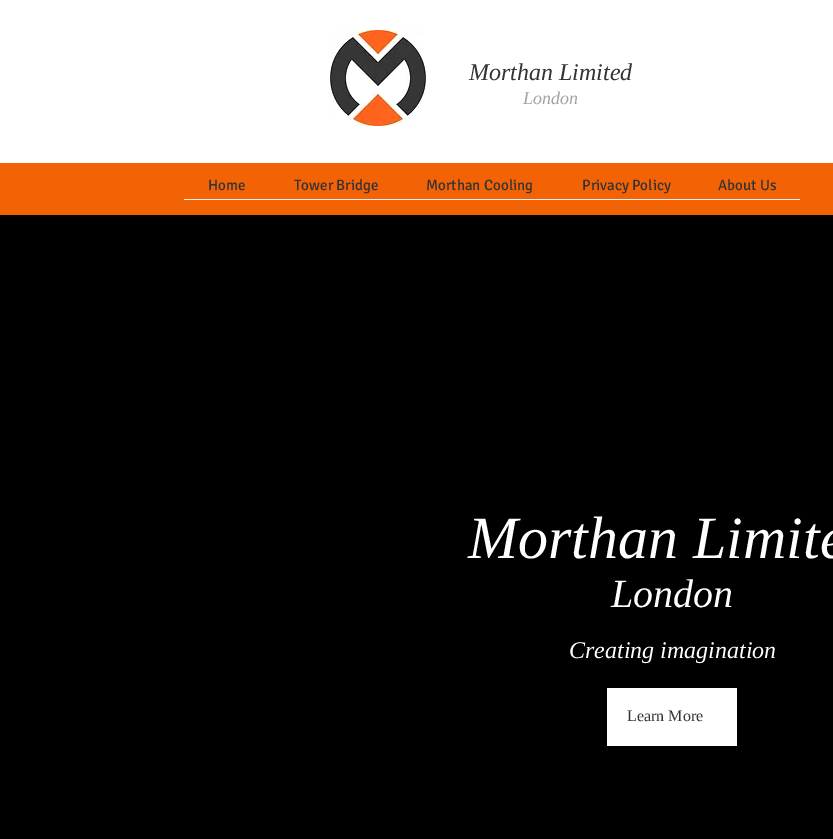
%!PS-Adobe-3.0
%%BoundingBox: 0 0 833 839
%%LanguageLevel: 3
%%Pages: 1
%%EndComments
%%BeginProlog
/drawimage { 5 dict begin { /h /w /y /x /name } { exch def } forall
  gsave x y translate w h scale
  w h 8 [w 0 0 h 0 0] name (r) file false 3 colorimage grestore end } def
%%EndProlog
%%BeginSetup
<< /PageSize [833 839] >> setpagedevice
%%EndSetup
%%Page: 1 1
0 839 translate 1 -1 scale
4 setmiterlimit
1 setgray
0 0 833 839 rectfill
(images/1.raw) 330 30 96 96 drawimage
0.953 0.388 0.02 setrgbcolor
0 163 833 52 rectfill
0.996 0.945 0.914 setrgbcolor
184 199 616 1 rectfill
0 setgray
0 215 833 624 rectfill
1 setgray
607 688 130 58 rectfill
/LiberationSerif-Italic [24 0 0 -24 0 0] selectfont
0.2 setgray
469 80 moveto (Morthan Limited) show
/LiberationSerif-Italic [18 0 0 -18 0 0] selectfont
0.635 setgray
523 104 moveto (London) show
/Signika-Regular [15 0 0 -15 0 0] selectfont
0.2 setgray
208 190 moveto (Home) show
294 190 moveto (Tower Bridge) show
426 190 moveto (Morthan Cooling) show
582 190 moveto (Privacy Policy) show
718 190 moveto (About Us) show
/LiberationSerif-Italic [60 0 0 -60 0 0] selectfont
1 setgray
468 558 moveto (Morthan Limite) show
/LiberationSerif-Italic [40 0 0 -40 0 0] selectfont
611 607 moveto (London) show
/LiberationSerif-Italic [24 0 0 -24 0 0] selectfont
569 658 moveto (Creating imagination) show
/LiberationSerif-Regular [16 0 0 -16 0 0] selectfont
0.2 setgray
627 721 moveto (Learn More) show
showpage
%%EOF
